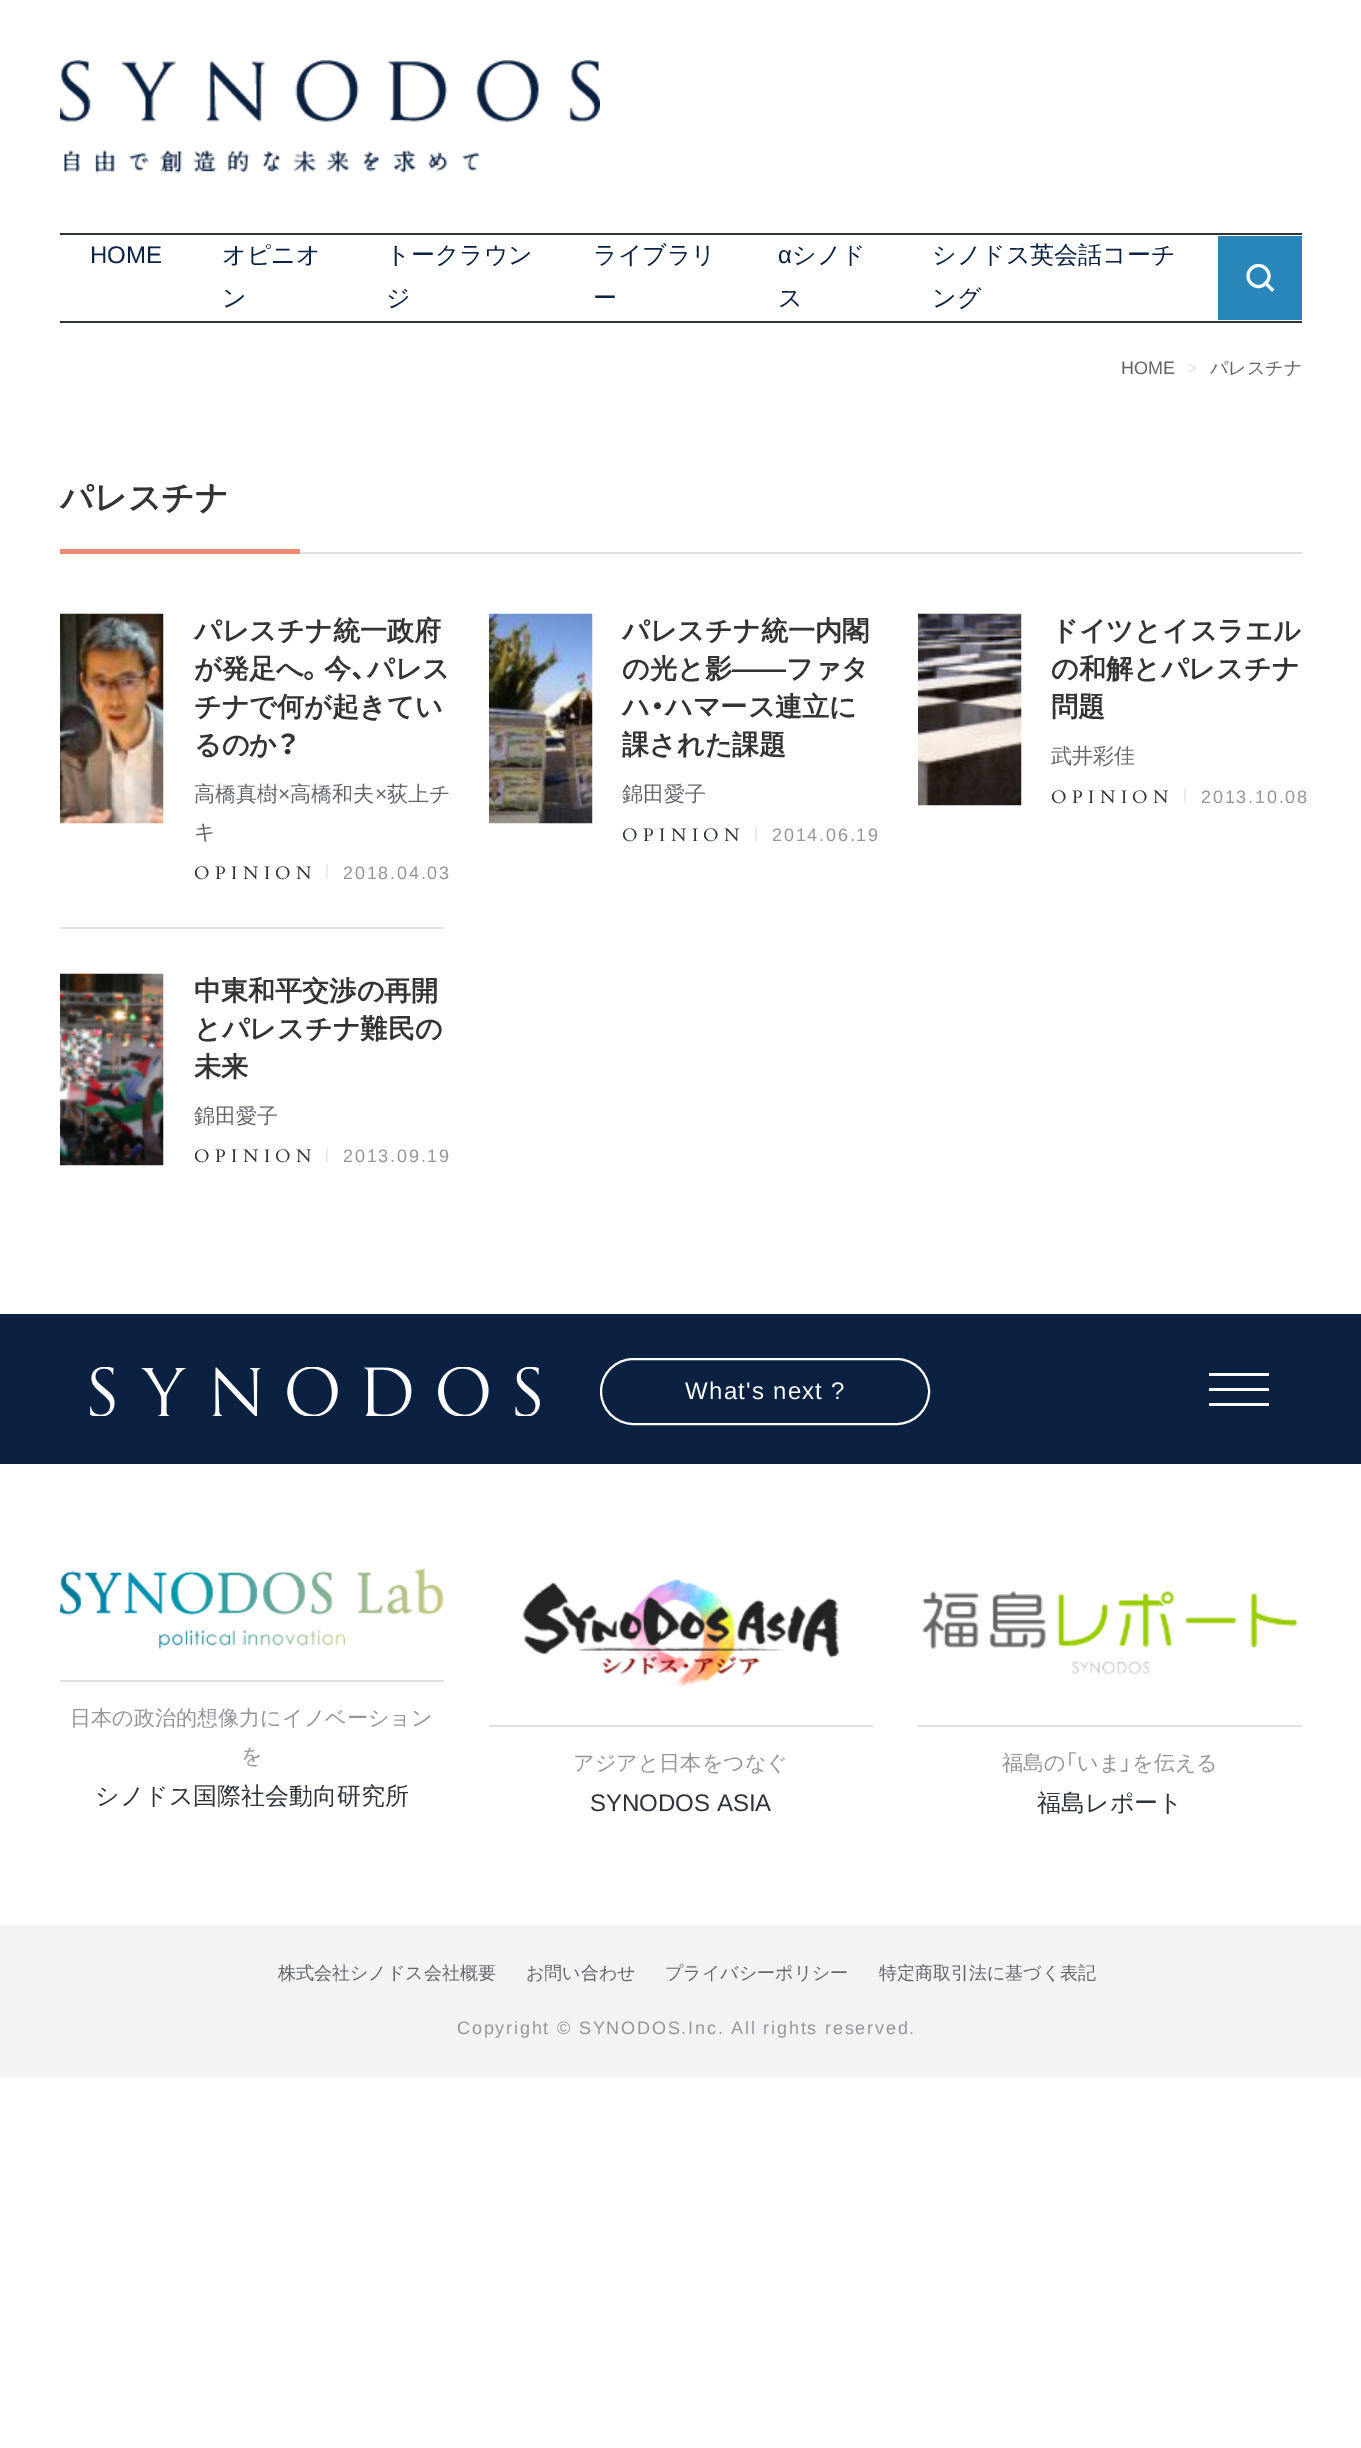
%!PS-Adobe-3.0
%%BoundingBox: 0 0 1361 2448
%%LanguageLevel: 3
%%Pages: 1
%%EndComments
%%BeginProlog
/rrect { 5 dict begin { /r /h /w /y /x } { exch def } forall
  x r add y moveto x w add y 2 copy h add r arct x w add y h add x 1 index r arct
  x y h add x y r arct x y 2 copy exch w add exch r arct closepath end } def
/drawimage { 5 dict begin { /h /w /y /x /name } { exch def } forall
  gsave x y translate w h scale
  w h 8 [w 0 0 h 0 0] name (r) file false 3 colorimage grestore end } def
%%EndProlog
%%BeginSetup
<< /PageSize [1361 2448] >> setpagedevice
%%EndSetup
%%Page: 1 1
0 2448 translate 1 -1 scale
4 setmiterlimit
1 setgray
0 0 1361 2448 rectfill
(images/1.raw) 60 60 540 113 drawimage
0.18 0.2 0.227 setrgbcolor
60 233 1242 2 rectfill
60 321 1242 2 rectfill
0.161 0.529 0.733 setrgbcolor
1218 236 84 84 rectfill
1 setgray
3 setlinewidth
newpath 1258.5 276 10.5 0 360 arc closepath stroke
2 setlinecap
1 setlinejoin
newpath 1265.5 283 moveto 1272 289.5 lineto stroke
0.875 0.878 0.882 setrgbcolor
300 552 1002 2 rectfill
0.925 0.545 0.447 setrgbcolor
60 549 240 5 rectfill
(images/2.raw) 60 613 104 211 drawimage
(images/3.raw) 489 613 104 211 drawimage
(images/4.raw) 918 613 104 193 drawimage
0.875 0.878 0.882 setrgbcolor
60 927 384 2 rectfill
(images/5.raw) 60 973 104 193 drawimage
0.039 0.129 0.255 setrgbcolor
0 1314 1361 150 rectfill
(images/6.raw) 90 1367 450 49 drawimage
1 setgray
2 setlinewidth
0 setlinecap
0 setlinejoin
601 1359 328 65 32.5 rrect stroke
1209 1373 60 3 rectfill
1209 1388 60 3 rectfill
1209 1403 60 3 rectfill
(images/7.raw) 60 1569 384 80 drawimage
0.875 0.878 0.882 setrgbcolor
60 1680 384 2 rectfill
(images/8.raw) 522 1579 318 108 drawimage
489 1725 384 2 rectfill
(images/9.raw) 922 1591 376 83 drawimage
918 1725 384 2 rectfill
0.953 setgray
0 1925 1361 153 rectfill
/LiberationSans-Regular [24 0 0 -24 0 0] selectfont
0.039 0.129 0.255 setrgbcolor
90 263 moveto (HOME) show
/WenQuanYiZenHei-Medium [24 0 0 -24 0 0] selectfont
222 263 moveto (オピニオ) show
222 306 moveto (ン) show
386 263 moveto (トークラウン) show
386 306 moveto (ジ) show
593 263 moveto (ライブラリ) show
593 306 moveto (ー) show
/LiberationSans-Regular [24 0 0 -24 0 0] selectfont
778 263 moveto (α) show
/WenQuanYiZenHei-Medium [24 0 0 -24 0 0] selectfont
792 263 moveto (シノド) show
778 306 moveto (ス) show
932 263 moveto (シノドス英会話コーチ) show
932 306 moveto (ング) show
/LiberationSans-Regular [18 0 0 -18 0 0] selectfont
0.384 0.4 0.42 setrgbcolor
1121 374 moveto (HOME) show
0.875 0.878 0.882 setrgbcolor
1187 374 moveto (>) show
/WenQuanYiZenHei-Medium [18 0 0 -18 0 0] selectfont
0.384 0.4 0.42 setrgbcolor
1210 374 moveto (パレスチナ) show
/WenQuanYiZenHei-Bold [33 0 0 -33 0 0] selectfont
0.2 setgray
60 509 moveto (パレスチナ) show
/WenQuanYiZenHei-Bold [27.1 0 0 -27.1 0 0] selectfont
194 640 moveto (パレスチナ統一政府) show
194 678 moveto (が発足へ) show
/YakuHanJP-Bold [27.1 0 0 -27.1 0 0] selectfont
303 678 moveto (。) show
/WenQuanYiZenHei-Bold [27.1 0 0 -27.1 0 0] selectfont
324 678 moveto (今) show
/YakuHanJP-Bold [27.1 0 0 -27.1 0 0] selectfont
351 678 moveto (、) show
/WenQuanYiZenHei-Bold [27.1 0 0 -27.1 0 0] selectfont
367 678 moveto (パレス) show
194 716 moveto (チナで何が起きてい) show
194 754 moveto (るのか) show
/YakuHanJP-Bold [27.1 0 0 -27.1 0 0] selectfont
277 754 moveto (？) show
/WenQuanYiZenHei-Medium [21.1 0 0 -21.1 0 0] selectfont
0.384 0.4 0.42 setrgbcolor
194 801 moveto (高橋真樹) show
/LiberationSans-Regular [21.1 0 0 -21.1 0 0] selectfont
278 801 moveto (×) show
/WenQuanYiZenHei-Medium [21.1 0 0 -21.1 0 0] selectfont
290 801 moveto (高橋和夫) show
/LiberationSans-Regular [21.1 0 0 -21.1 0 0] selectfont
375 801 moveto (×) show
/WenQuanYiZenHei-Medium [21.1 0 0 -21.1 0 0] selectfont
387 801 moveto (荻上チ) show
194 839 moveto (キ) show
/Cardo-Regular [18 0 0 -18 0 0] selectfont
0.18 0.2 0.227 setrgbcolor
194 879 moveto 5.5 0 (OPINION) ashow
0.875 0.878 0.882 setrgbcolor
325 879 moveto 5.5 0 (|) ashow
/LiberationSans-Regular [18 0 0 -18 0 0] selectfont
0.573 0.584 0.604 setrgbcolor
343 879 moveto 1.8 0 (2018.04.03) ashow
/WenQuanYiZenHei-Bold [27.1 0 0 -27.1 0 0] selectfont
0.2 setgray
622 640 moveto (パレスチナ統一内閣) show
622 678 moveto (の光と影) show
/LiberationSans-Bold [27.1 0 0 -27.1 0 0] selectfont
732 678 moveto (――) show
/WenQuanYiZenHei-Bold [27.1 0 0 -27.1 0 0] selectfont
786 678 moveto (ファタ) show
622 716 moveto (ハ) show
/YakuHanJP-Bold [27.1 0 0 -27.1 0 0] selectfont
650 716 moveto (・) show
/WenQuanYiZenHei-Bold [27.1 0 0 -27.1 0 0] selectfont
665 716 moveto (ハマース連立に) show
622 754 moveto (課された課題) show
/WenQuanYiZenHei-Medium [21.1 0 0 -21.1 0 0] selectfont
0.384 0.4 0.42 setrgbcolor
622 801 moveto (錦田愛子) show
/Cardo-Regular [18 0 0 -18 0 0] selectfont
0.18 0.2 0.227 setrgbcolor
622 841 moveto 5.5 0 (OPINION) ashow
0.875 0.878 0.882 setrgbcolor
754 841 moveto 5.5 0 (|) ashow
/LiberationSans-Regular [18 0 0 -18 0 0] selectfont
0.573 0.584 0.604 setrgbcolor
772 841 moveto 1.8 0 (2014.06.19) ashow
/WenQuanYiZenHei-Bold [27.1 0 0 -27.1 0 0] selectfont
0.2 setgray
1051 640 moveto (ドイツとイスラエル) show
1051 678 moveto (の和解とパレスチナ) show
1051 716 moveto (問題) show
/WenQuanYiZenHei-Medium [21.1 0 0 -21.1 0 0] selectfont
0.384 0.4 0.42 setrgbcolor
1051 763 moveto (武井彩佳) show
/Cardo-Regular [18 0 0 -18 0 0] selectfont
0.18 0.2 0.227 setrgbcolor
1051 803 moveto 5.5 0 (OPINION) ashow
0.875 0.878 0.882 setrgbcolor
1183 803 moveto 5.5 0 (|) ashow
/LiberationSans-Regular [18 0 0 -18 0 0] selectfont
0.573 0.584 0.604 setrgbcolor
1201 803 moveto 1.8 0 (2013.10.08) ashow
/WenQuanYiZenHei-Bold [27.1 0 0 -27.1 0 0] selectfont
0.2 setgray
194 1000 moveto (中東和平交渉の再開) show
194 1038 moveto (とパレスチナ難民の) show
194 1076 moveto (未来) show
/WenQuanYiZenHei-Medium [21.1 0 0 -21.1 0 0] selectfont
0.384 0.4 0.42 setrgbcolor
194 1123 moveto (錦田愛子) show
/Cardo-Regular [18 0 0 -18 0 0] selectfont
0.18 0.2 0.227 setrgbcolor
194 1162 moveto 5.5 0 (OPINION) ashow
0.875 0.878 0.882 setrgbcolor
325 1162 moveto 5.5 0 (|) ashow
/LiberationSans-Regular [18 0 0 -18 0 0] selectfont
0.573 0.584 0.604 setrgbcolor
343 1162 moveto 1.8 0 (2013.09.19) ashow
/LiberationSans-Regular [24 0 0 -24 0 0] selectfont
1 setgray
685 1399 moveto 1.25 0 (What's next ?) ashow
/WenQuanYiZenHei-Medium [21.1 0 0 -21.1 0 0] selectfont
0.573 0.584 0.604 setrgbcolor
70 1725 moveto (日本の政治的想像力にイノベーション) show
241 1763 moveto (を) show
/WenQuanYiZenHei-Medium [24 0 0 -24 0 0] selectfont
0.18 0.2 0.227 setrgbcolor
95 1804 moveto (シノドス国際社会動向研究所) show
/WenQuanYiZenHei-Medium [21.1 0 0 -21.1 0 0] selectfont
0.573 0.584 0.604 setrgbcolor
573 1770 moveto (アジアと日本をつなぐ) show
/LiberationSans-Regular [24 0 0 -24 0 0] selectfont
0.18 0.2 0.227 setrgbcolor
590 1811 moveto (SYNODOS ASIA) show
/WenQuanYiZenHei-Medium [21.1 0 0 -21.1 0 0] selectfont
0.573 0.584 0.604 setrgbcolor
1002 1770 moveto (福島の) show
/YakuHanJP-Regular [21.1 0 0 -21.1 0 0] selectfont
1065 1770 moveto (「) show
/WenQuanYiZenHei-Medium [21.1 0 0 -21.1 0 0] selectfont
1077 1770 moveto (いま) show
/YakuHanJP-Regular [21.1 0 0 -21.1 0 0] selectfont
1120 1770 moveto (」) show
/WenQuanYiZenHei-Medium [21.1 0 0 -21.1 0 0] selectfont
1132 1770 moveto (を伝える) show
/WenQuanYiZenHei-Medium [24 0 0 -24 0 0] selectfont
0.18 0.2 0.227 setrgbcolor
1037 1811 moveto (福島レポート) show
/WenQuanYiZenHei-Medium [18 0 0 -18 0 0] selectfont
0.384 0.4 0.42 setrgbcolor
278 1979 moveto (株式会社シノドス会社概要) show
526 1979 moveto (お問い合わせ) show
665 1979 moveto (プライバシーポリシー) show
879 1979 moveto (特定商取引法に基づく表記) show
/LiberationSans-Regular [18 0 0 -18 0 0] selectfont
0.573 0.584 0.604 setrgbcolor
457 2034 moveto 1.8 0 (Copyright © SYNODOS.Inc. All rights reserved.) ashow
showpage
%%EOF
